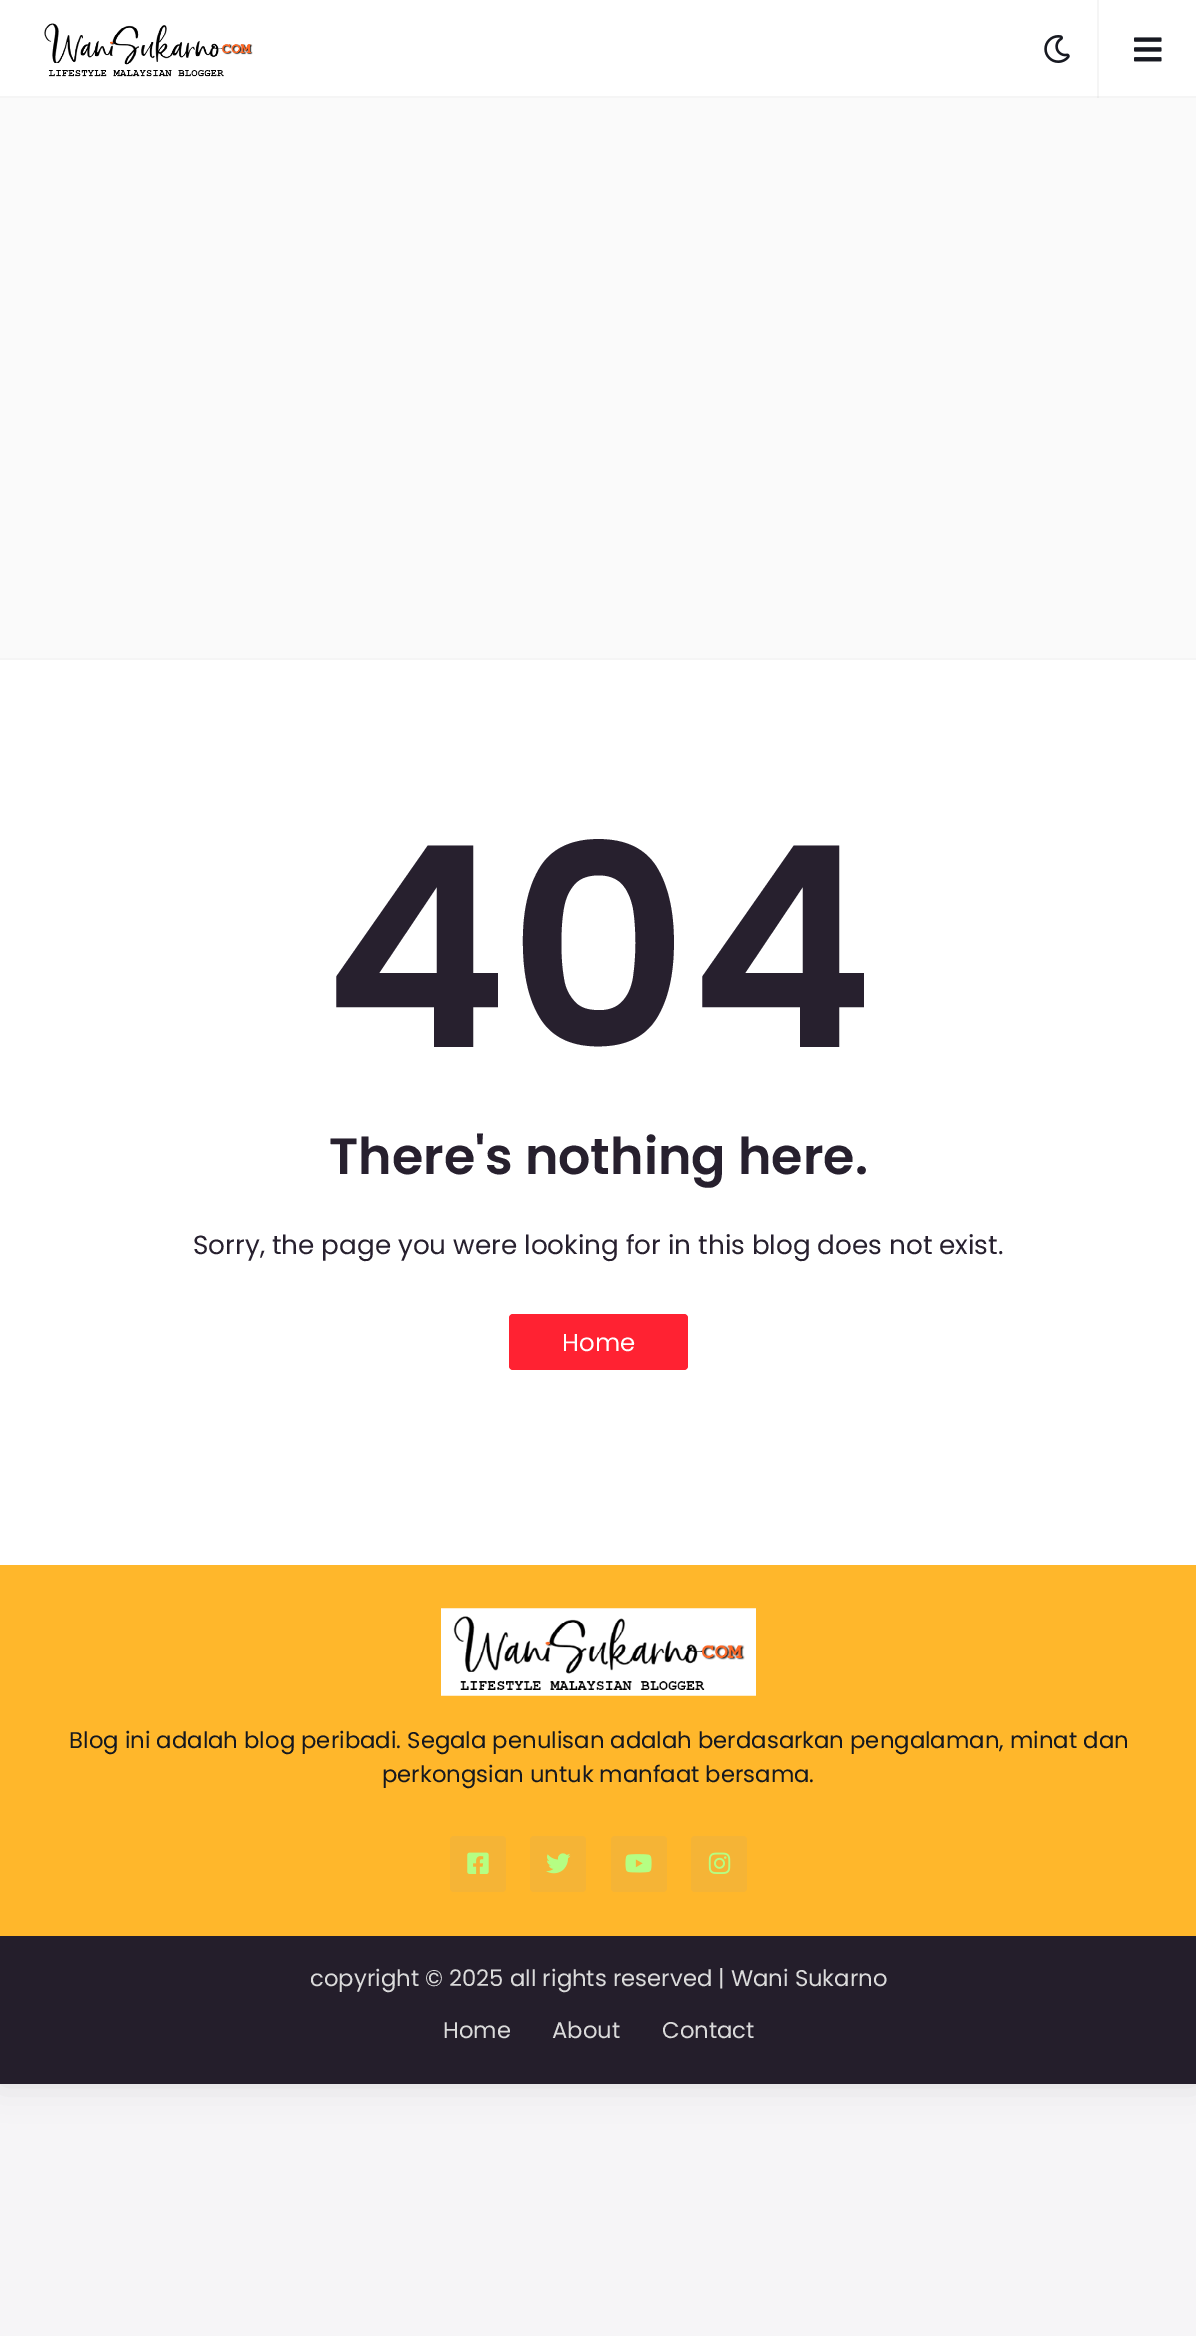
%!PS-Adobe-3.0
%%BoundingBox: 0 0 1196 2336
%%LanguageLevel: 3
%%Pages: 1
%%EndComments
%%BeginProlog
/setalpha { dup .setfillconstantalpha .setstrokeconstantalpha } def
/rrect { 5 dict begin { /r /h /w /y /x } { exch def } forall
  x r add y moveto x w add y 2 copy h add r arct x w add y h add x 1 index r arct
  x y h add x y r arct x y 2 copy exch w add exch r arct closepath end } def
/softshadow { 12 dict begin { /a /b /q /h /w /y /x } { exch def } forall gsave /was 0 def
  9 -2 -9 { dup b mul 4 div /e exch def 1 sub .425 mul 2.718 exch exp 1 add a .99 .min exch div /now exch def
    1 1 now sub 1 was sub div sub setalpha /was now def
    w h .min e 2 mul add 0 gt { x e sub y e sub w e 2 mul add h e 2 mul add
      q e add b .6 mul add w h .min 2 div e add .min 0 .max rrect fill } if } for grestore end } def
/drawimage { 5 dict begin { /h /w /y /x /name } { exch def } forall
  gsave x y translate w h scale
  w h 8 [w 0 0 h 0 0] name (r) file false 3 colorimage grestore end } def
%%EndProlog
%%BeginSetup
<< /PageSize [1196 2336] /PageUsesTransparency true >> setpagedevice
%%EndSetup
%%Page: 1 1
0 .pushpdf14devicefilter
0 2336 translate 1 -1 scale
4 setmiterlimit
0.965 0.961 0.969 setrgbcolor
0 0 1196 2336 rectfill
0 setgray
0 0 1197 2084 0 17.5 0.1 softshadow
1 setgray
0 0 1196 1565 rectfill
0.961 setgray
1097 0 2 98 rectfill
0 96 1196 2 rectfill
0.925 setgray
1097 96 2 2 rectfill
(images/1.raw) 44 23 209 54 drawimage
(images/2.raw) 1044 35 26 28 drawimage
(images/3.raw) 1134 37 28 25 drawimage
0.961 setgray
0 658 1196 2 rectfill
0.98 setgray
0 98 1196 560 rectfill
1 0.133 0.196 setrgbcolor
509 1314 179 56 4 rrect fill
1 0.718 0.169 setrgbcolor
0 1565 1196 371 rectfill
(images/4.raw) 441 1608 315 88 drawimage
0.961 0.706 0.212 setrgbcolor
450 1836 56 56 4 rrect fill
(images/5.raw) 467 1852 22 22 drawimage
530 1836 56 56 4 rrect fill
(images/6.raw) 546 1853 25 21 drawimage
611 1836 56 56 4 rrect fill
(images/7.raw) 625 1854 27 19 drawimage
691 1836 56 56 4 rrect fill
(images/8.raw) 708 1852 23 22 drawimage
0.141 0.118 0.169 setrgbcolor
0 1936 1196 148 rectfill
/Poppins-SemiBold [280 0 0 -280 0 0] selectfont
0.153 0.125 0.18 setrgbcolor
323 1047 moveto (404) show
/Poppins-SemiBold [50.75 0 0 -50.75 0 0] selectfont
329 1174 moveto (There's nothing here.) show
/Poppins-Regular [26.25 0 0 -26.25 0 0] selectfont
193 1254 moveto (Sorry, the page you were looking for in this blog does not exist.) show
/Poppins-Regular [24.5 0 0 -24.5 0 0] selectfont
1 setgray
562 1351 moveto (Home) show
/Poppins-Regular [22.75 0 0 -22.75 0 0] selectfont
0.082 0.094 0.122 setrgbcolor
69 1748 moveto (Blog ini adalah blog peribadi. Segala penulisan adalah berdasarkan pengalaman, minat dan) show
382 1782 moveto (perkongsian untuk manfaat bersama.) show
0.859 setgray
310 1986 moveto (copyright © 2025 all rights reserved | Wani Sukarno) show
443 2038 moveto (Home) show
552 2038 moveto (About) show
662 2038 moveto (Contact) show
.poppdf14devicefilter showpage
%%EOF
